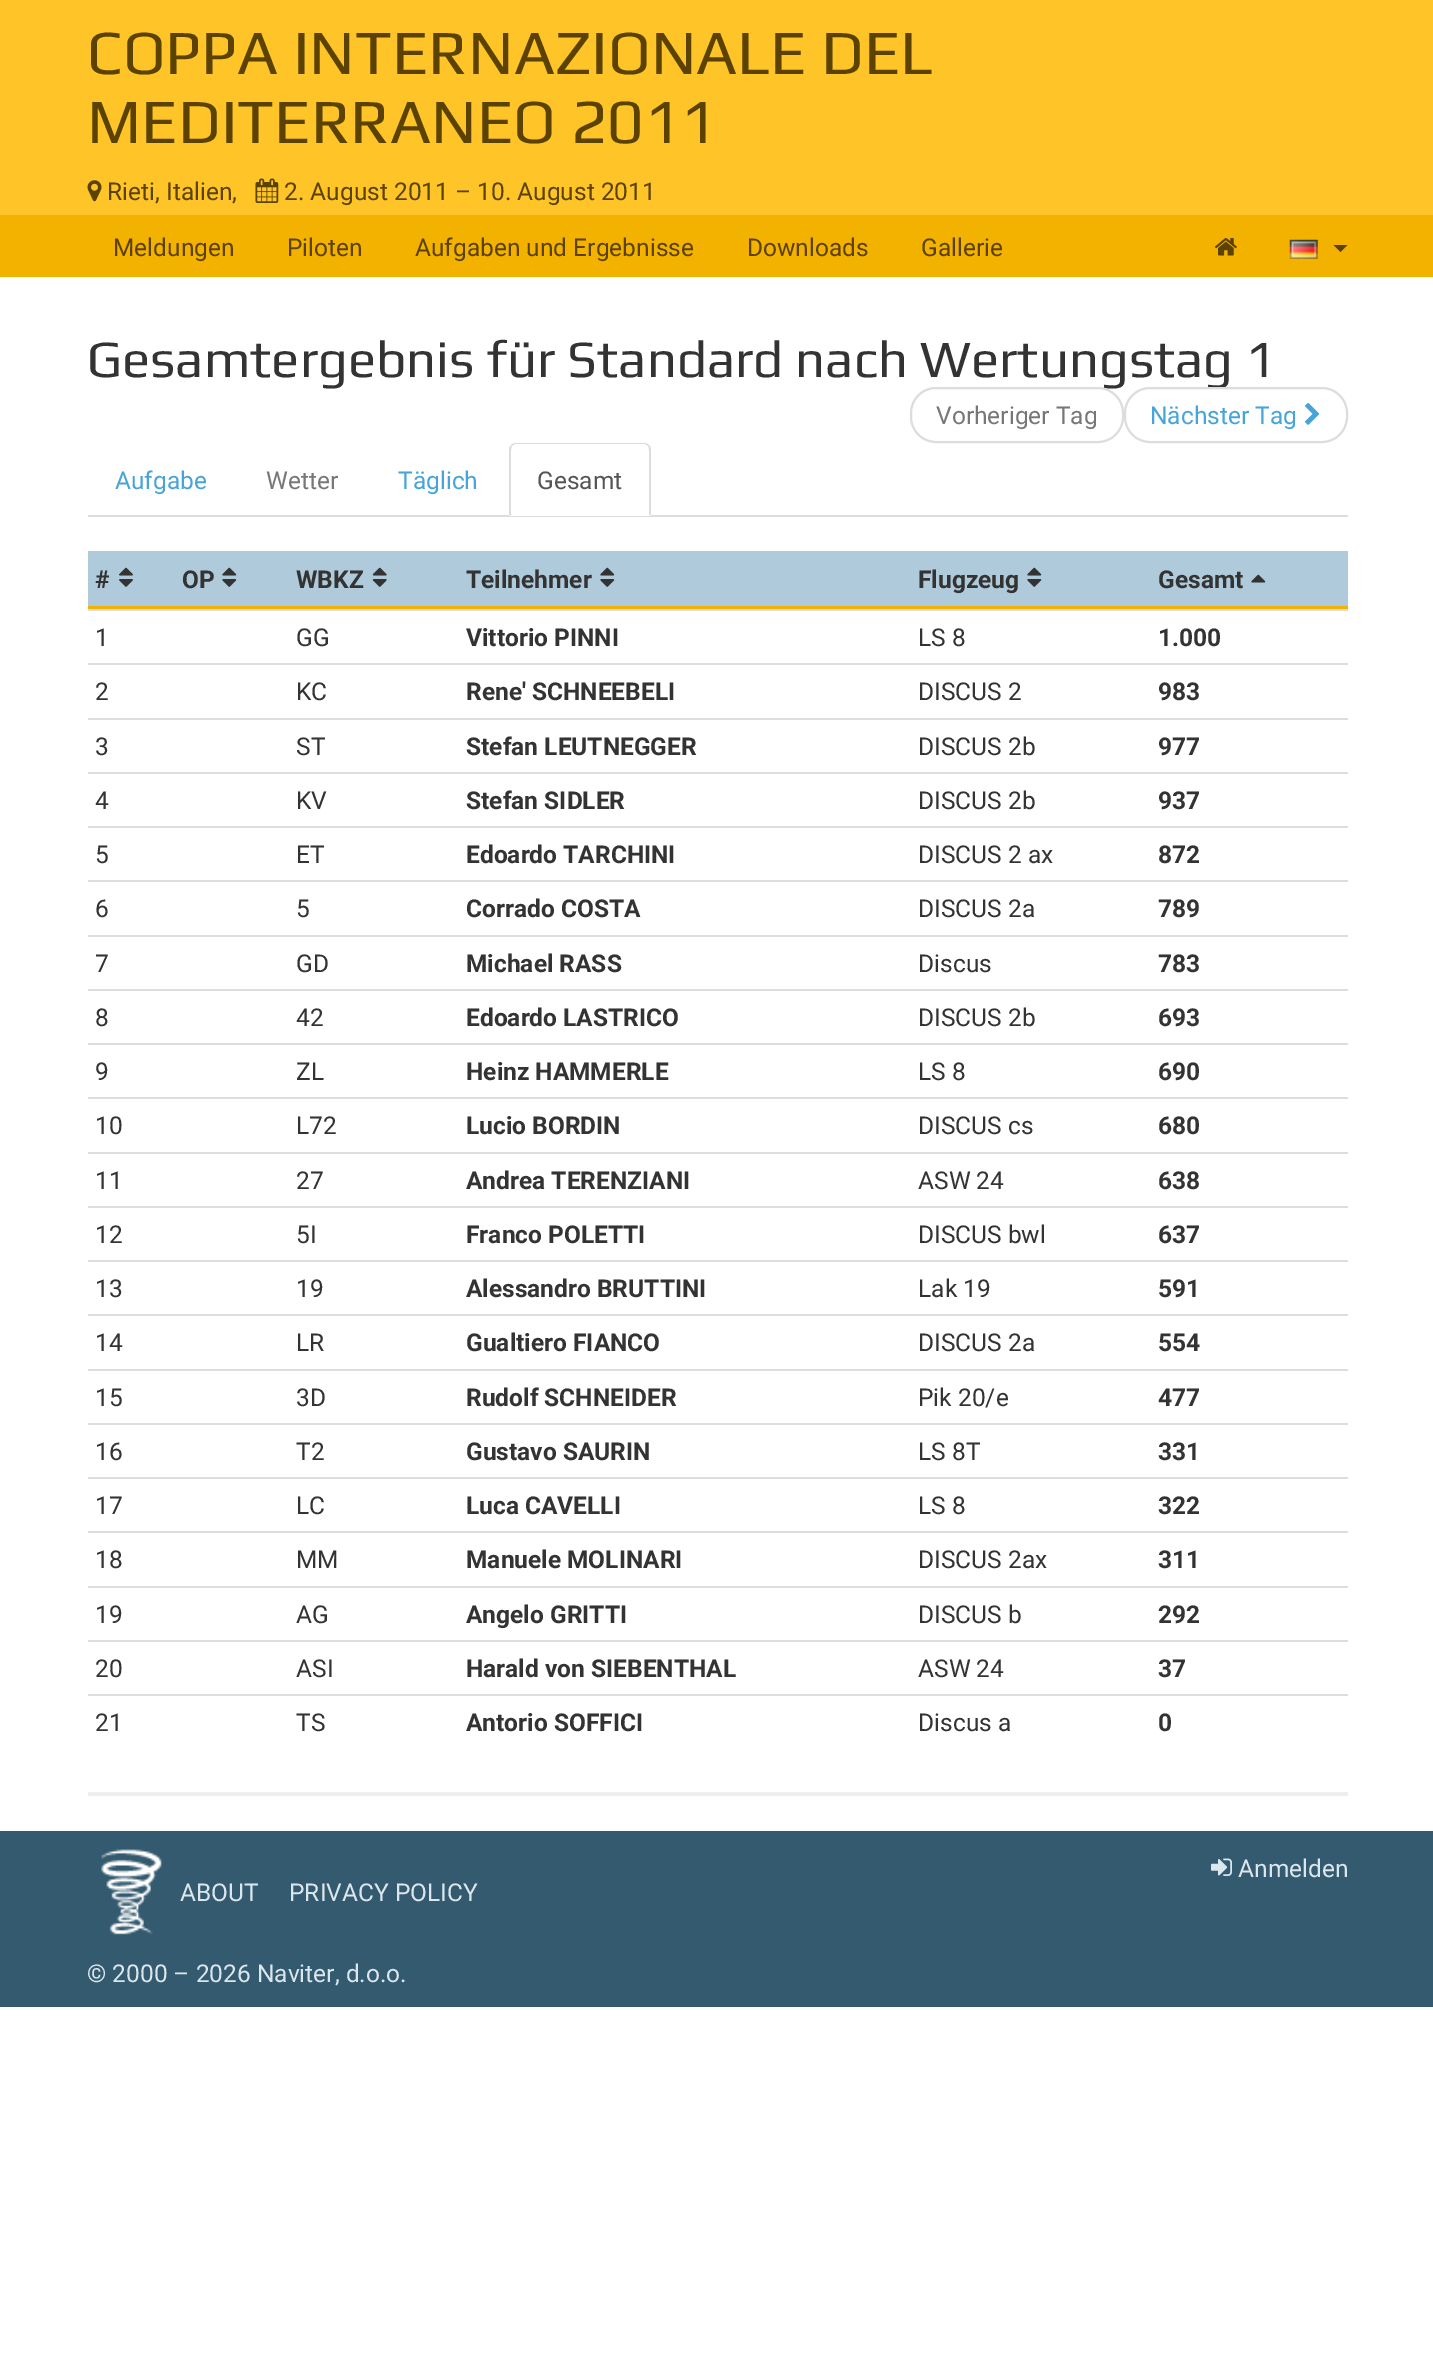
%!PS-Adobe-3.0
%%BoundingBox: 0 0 1433 2358
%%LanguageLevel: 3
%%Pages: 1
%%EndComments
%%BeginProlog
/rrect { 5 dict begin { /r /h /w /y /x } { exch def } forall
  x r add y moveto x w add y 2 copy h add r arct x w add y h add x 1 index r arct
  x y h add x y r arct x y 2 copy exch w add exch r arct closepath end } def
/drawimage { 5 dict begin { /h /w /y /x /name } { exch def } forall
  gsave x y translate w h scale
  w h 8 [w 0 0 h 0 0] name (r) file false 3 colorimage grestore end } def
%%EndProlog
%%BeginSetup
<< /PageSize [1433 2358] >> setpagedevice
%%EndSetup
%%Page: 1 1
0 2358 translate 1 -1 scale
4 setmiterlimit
1 setgray
0 0 1433 2358 rectfill
1 0.773 0.157 setrgbcolor
0 0 1433 215 rectfill
(images/1.raw) 87 180 15 22 drawimage
(images/2.raw) 255 178 24 25 drawimage
0.957 0.698 0 setrgbcolor
0 215 1433 62 rectfill
(images/3.raw) 1214 238 23 18 drawimage
(images/4.raw) 1289 239 29 20 drawimage
0.357 0.259 0 setrgbcolor
newpath 1333.5 245 moveto 1347.5 245 lineto 1340.5 252 lineto closepath fill
0.867 setgray
88 515 1260 2 rectfill
1 setgray
newpath 516 443 moveto 644 443 lineto 648 443 651 446 651 450 curveto 651 516 lineto 509 516 lineto 509 450 lineto 509 446 512 443 516 443 curveto closepath fill
0.867 setgray
newpath 516 443 moveto 514 443 512 444 511 445 curveto 512 446 lineto 513 445 514 444 516 444 curveto 644 444 lineto 646 444 647 445 648 446 curveto 649 445 lineto 648 444 646 443 644 443 curveto closepath fill
newpath 649 445 moveto 650 446 651 448 651 450 curveto 651 516 lineto 649 514 lineto 649 450 lineto 649 449 649 447 648 446 curveto closepath fill
newpath 509 448 moveto 511 445 lineto 512 446 lineto 512 447 511 448 511 450 curveto 511 514 lineto 512 514 lineto 509 516 lineto closepath fill
0.686 0.792 0.855 setrgbcolor
88 551 1260 55 rectfill
0.957 0.698 0 setrgbcolor
88 606 1260 3 rectfill
(images/6.raw) 119 567 14 20 drawimage
(images/7.raw) 222 567 15 20 drawimage
(images/8.raw) 372 567 15 20 drawimage
(images/7.raw) 600 567 15 20 drawimage
(images/7.raw) 1027 567 15 20 drawimage
(images/9.raw) 1251 574 15 9 drawimage
0.867 setgray
88 609 1260 2 rectfill
88 663 1260 2 rectfill
88 718 1260 2 rectfill
88 772 1260 2 rectfill
88 826 1260 2 rectfill
88 880 1260 2 rectfill
88 935 1260 2 rectfill
88 989 1260 2 rectfill
88 1043 1260 2 rectfill
88 1097 1260 2 rectfill
88 1152 1260 2 rectfill
88 1206 1260 2 rectfill
88 1260 1260 2 rectfill
88 1314 1260 2 rectfill
88 1369 1260 2 rectfill
88 1423 1260 2 rectfill
88 1477 1260 2 rectfill
88 1531 1260 2 rectfill
88 1586 1260 2 rectfill
88 1640 1260 2 rectfill
88 1694 1260 2 rectfill
0.933 setgray
88 1792 1260 4 rectfill
0.204 0.353 0.435 setrgbcolor
0 1831 1433 176 rectfill
(images/10.raw) 1211 1858 21 18 drawimage
(images/11.raw) 101 1849 61 86 drawimage
/Play-Regular [63 0 0 -63 0 0] selectfont
0.357 0.259 0 setrgbcolor
87 74 moveto (COPPA INTERNAZIONALE DEL) show
87 143 moveto (MEDITERRANEO 2011) show
/Roboto-Regular [24.5 0 0 -24.5 0 0] selectfont
107 200 moveto (Rieti, Italien,) show
284 200 moveto (2. August 2011 – 10. August 2011) show
113 256 moveto (Meldungen) show
287 256 moveto (Piloten) show
415 256 moveto (Aufgaben und Ergebnisse) show
747 256 moveto (Downloads) show
921 256 moveto (Gallerie) show
/Play-Regular [52.5 0 0 -52.5 0 0] selectfont
0.2 setgray
87 377 moveto (Gesamtergebnis für Standard nach Wertungstag 1) show
1 setgray
911 388 212 54 25 rrect gsave fill grestore
0.867 setgray
2 setlinewidth
stroke
/Roboto-Regular [24.5 0 0 -24.5 0 0] selectfont
0.467 setgray
936 424 moveto (Vorheriger Tag) show
1 setgray
1125 388 222 54 25 rrect gsave fill grestore
0.867 setgray
stroke
0.278 0.643 0.851 setrgbcolor
1150 424 moveto (Nächster Tag) show
(images/5.raw) 1305 402 15 23 drawimage
115 489 moveto (Aufgabe) show
0.467 setgray
266 489 moveto (Wetter) show
0.278 0.643 0.851 setrgbcolor
398 489 moveto (Täglich) show
0.333 setgray
537 489 moveto (Gesamt) show
/Roboto-Bold [24.5 0 0 -24.5 0 0] selectfont
0.2 setgray
95 588 moveto (#) show
182 588 moveto (OP) show
296 588 moveto (WBKZ) show
466 588 moveto (Teilnehmer) show
918 588 moveto (Flugzeug) show
1158 588 moveto (Gesamt) show
/Roboto-Regular [24.5 0 0 -24.5 0 0] selectfont
95 646 moveto (1) show
296 646 moveto (GG) show
/Roboto-Bold [24.5 0 0 -24.5 0 0] selectfont
466 646 moveto (Vittorio PINNI) show
/Roboto-Regular [24.5 0 0 -24.5 0 0] selectfont
918 646 moveto (LS 8) show
/Roboto-Bold [24.5 0 0 -24.5 0 0] selectfont
1158 646 moveto (1.000) show
/Roboto-Regular [24.5 0 0 -24.5 0 0] selectfont
95 700 moveto (2) show
296 700 moveto (KC) show
/Roboto-Bold [24.5 0 0 -24.5 0 0] selectfont
466 700 moveto (Rene' SCHNEEBELI) show
/Roboto-Regular [24.5 0 0 -24.5 0 0] selectfont
918 700 moveto (DISCUS 2) show
/Roboto-Bold [24.5 0 0 -24.5 0 0] selectfont
1158 700 moveto (983) show
/Roboto-Regular [24.5 0 0 -24.5 0 0] selectfont
95 755 moveto (3) show
296 755 moveto (ST) show
/Roboto-Bold [24.5 0 0 -24.5 0 0] selectfont
466 755 moveto (Stefan LEUTNEGGER) show
/Roboto-Regular [24.5 0 0 -24.5 0 0] selectfont
918 755 moveto (DISCUS 2b) show
/Roboto-Bold [24.5 0 0 -24.5 0 0] selectfont
1158 755 moveto (977) show
/Roboto-Regular [24.5 0 0 -24.5 0 0] selectfont
95 809 moveto (4) show
296 809 moveto (KV) show
/Roboto-Bold [24.5 0 0 -24.5 0 0] selectfont
466 809 moveto (Stefan SIDLER) show
/Roboto-Regular [24.5 0 0 -24.5 0 0] selectfont
918 809 moveto (DISCUS 2b) show
/Roboto-Bold [24.5 0 0 -24.5 0 0] selectfont
1158 809 moveto (937) show
/Roboto-Regular [24.5 0 0 -24.5 0 0] selectfont
95 863 moveto (5) show
296 863 moveto (ET) show
/Roboto-Bold [24.5 0 0 -24.5 0 0] selectfont
466 863 moveto (Edoardo TARCHINI) show
/Roboto-Regular [24.5 0 0 -24.5 0 0] selectfont
918 863 moveto (DISCUS 2 ax) show
/Roboto-Bold [24.5 0 0 -24.5 0 0] selectfont
1158 863 moveto (872) show
/Roboto-Regular [24.5 0 0 -24.5 0 0] selectfont
95 917 moveto (6) show
296 917 moveto (5) show
/Roboto-Bold [24.5 0 0 -24.5 0 0] selectfont
466 917 moveto (Corrado COSTA) show
/Roboto-Regular [24.5 0 0 -24.5 0 0] selectfont
918 917 moveto (DISCUS 2a) show
/Roboto-Bold [24.5 0 0 -24.5 0 0] selectfont
1158 917 moveto (789) show
/Roboto-Regular [24.5 0 0 -24.5 0 0] selectfont
95 972 moveto (7) show
296 972 moveto (GD) show
/Roboto-Bold [24.5 0 0 -24.5 0 0] selectfont
466 972 moveto (Michael RASS) show
/Roboto-Regular [24.5 0 0 -24.5 0 0] selectfont
918 972 moveto (Discus) show
/Roboto-Bold [24.5 0 0 -24.5 0 0] selectfont
1158 972 moveto (783) show
/Roboto-Regular [24.5 0 0 -24.5 0 0] selectfont
95 1026 moveto (8) show
296 1026 moveto (42) show
/Roboto-Bold [24.5 0 0 -24.5 0 0] selectfont
466 1026 moveto (Edoardo LASTRICO) show
/Roboto-Regular [24.5 0 0 -24.5 0 0] selectfont
918 1026 moveto (DISCUS 2b) show
/Roboto-Bold [24.5 0 0 -24.5 0 0] selectfont
1158 1026 moveto (693) show
/Roboto-Regular [24.5 0 0 -24.5 0 0] selectfont
95 1080 moveto (9) show
296 1080 moveto (ZL) show
/Roboto-Bold [24.5 0 0 -24.5 0 0] selectfont
466 1080 moveto (Heinz HAMMERLE) show
/Roboto-Regular [24.5 0 0 -24.5 0 0] selectfont
918 1080 moveto (LS 8) show
/Roboto-Bold [24.5 0 0 -24.5 0 0] selectfont
1158 1080 moveto (690) show
/Roboto-Regular [24.5 0 0 -24.5 0 0] selectfont
95 1134 moveto (10) show
296 1134 moveto (L72) show
/Roboto-Bold [24.5 0 0 -24.5 0 0] selectfont
466 1134 moveto (Lucio BORDIN) show
/Roboto-Regular [24.5 0 0 -24.5 0 0] selectfont
918 1134 moveto (DISCUS cs) show
/Roboto-Bold [24.5 0 0 -24.5 0 0] selectfont
1158 1134 moveto (680) show
/Roboto-Regular [24.5 0 0 -24.5 0 0] selectfont
95 1189 moveto (11) show
296 1189 moveto (27) show
/Roboto-Bold [24.5 0 0 -24.5 0 0] selectfont
466 1189 moveto (Andrea TERENZIANI) show
/Roboto-Regular [24.5 0 0 -24.5 0 0] selectfont
918 1189 moveto (ASW 24) show
/Roboto-Bold [24.5 0 0 -24.5 0 0] selectfont
1158 1189 moveto (638) show
/Roboto-Regular [24.5 0 0 -24.5 0 0] selectfont
95 1243 moveto (12) show
296 1243 moveto (5I) show
/Roboto-Bold [24.5 0 0 -24.5 0 0] selectfont
466 1243 moveto (Franco POLETTI) show
/Roboto-Regular [24.5 0 0 -24.5 0 0] selectfont
918 1243 moveto (DISCUS bwl) show
/Roboto-Bold [24.5 0 0 -24.5 0 0] selectfont
1158 1243 moveto (637) show
/Roboto-Regular [24.5 0 0 -24.5 0 0] selectfont
95 1297 moveto (13) show
296 1297 moveto (19) show
/Roboto-Bold [24.5 0 0 -24.5 0 0] selectfont
466 1297 moveto (Alessandro BRUTTINI) show
/Roboto-Regular [24.5 0 0 -24.5 0 0] selectfont
918 1297 moveto (Lak 19) show
/Roboto-Bold [24.5 0 0 -24.5 0 0] selectfont
1158 1297 moveto (591) show
/Roboto-Regular [24.5 0 0 -24.5 0 0] selectfont
95 1351 moveto (14) show
296 1351 moveto (LR) show
/Roboto-Bold [24.5 0 0 -24.5 0 0] selectfont
466 1351 moveto (Gualtiero FIANCO) show
/Roboto-Regular [24.5 0 0 -24.5 0 0] selectfont
918 1351 moveto (DISCUS 2a) show
/Roboto-Bold [24.5 0 0 -24.5 0 0] selectfont
1158 1351 moveto (554) show
/Roboto-Regular [24.5 0 0 -24.5 0 0] selectfont
95 1406 moveto (15) show
296 1406 moveto (3D) show
/Roboto-Bold [24.5 0 0 -24.5 0 0] selectfont
466 1406 moveto (Rudolf SCHNEIDER) show
/Roboto-Regular [24.5 0 0 -24.5 0 0] selectfont
918 1406 moveto (Pik 20/e) show
/Roboto-Bold [24.5 0 0 -24.5 0 0] selectfont
1158 1406 moveto (477) show
/Roboto-Regular [24.5 0 0 -24.5 0 0] selectfont
95 1460 moveto (16) show
296 1460 moveto (T2) show
/Roboto-Bold [24.5 0 0 -24.5 0 0] selectfont
466 1460 moveto (Gustavo SAURIN) show
/Roboto-Regular [24.5 0 0 -24.5 0 0] selectfont
918 1460 moveto (LS 8T) show
/Roboto-Bold [24.5 0 0 -24.5 0 0] selectfont
1158 1460 moveto (331) show
/Roboto-Regular [24.5 0 0 -24.5 0 0] selectfont
95 1514 moveto (17) show
296 1514 moveto (LC) show
/Roboto-Bold [24.5 0 0 -24.5 0 0] selectfont
466 1514 moveto (Luca CAVELLI) show
/Roboto-Regular [24.5 0 0 -24.5 0 0] selectfont
918 1514 moveto (LS 8) show
/Roboto-Bold [24.5 0 0 -24.5 0 0] selectfont
1158 1514 moveto (322) show
/Roboto-Regular [24.5 0 0 -24.5 0 0] selectfont
95 1568 moveto (18) show
296 1568 moveto (MM) show
/Roboto-Bold [24.5 0 0 -24.5 0 0] selectfont
466 1568 moveto (Manuele MOLINARI) show
/Roboto-Regular [24.5 0 0 -24.5 0 0] selectfont
918 1568 moveto (DISCUS 2ax) show
/Roboto-Bold [24.5 0 0 -24.5 0 0] selectfont
1158 1568 moveto (311) show
/Roboto-Regular [24.5 0 0 -24.5 0 0] selectfont
95 1623 moveto (19) show
296 1623 moveto (AG) show
/Roboto-Bold [24.5 0 0 -24.5 0 0] selectfont
466 1623 moveto (Angelo GRITTI) show
/Roboto-Regular [24.5 0 0 -24.5 0 0] selectfont
918 1623 moveto (DISCUS b) show
/Roboto-Bold [24.5 0 0 -24.5 0 0] selectfont
1158 1623 moveto (292) show
/Roboto-Regular [24.5 0 0 -24.5 0 0] selectfont
95 1677 moveto (20) show
296 1677 moveto (ASI) show
/Roboto-Bold [24.5 0 0 -24.5 0 0] selectfont
466 1677 moveto (Harald von SIEBENTHAL) show
/Roboto-Regular [24.5 0 0 -24.5 0 0] selectfont
918 1677 moveto (ASW 24) show
/Roboto-Bold [24.5 0 0 -24.5 0 0] selectfont
1158 1677 moveto (37) show
/Roboto-Regular [24.5 0 0 -24.5 0 0] selectfont
95 1731 moveto (21) show
296 1731 moveto (TS) show
/Roboto-Bold [24.5 0 0 -24.5 0 0] selectfont
466 1731 moveto (Antorio SOFFICI) show
/Roboto-Regular [24.5 0 0 -24.5 0 0] selectfont
918 1731 moveto (Discus a) show
/Roboto-Bold [24.5 0 0 -24.5 0 0] selectfont
1158 1731 moveto (0) show
/Roboto-Regular [24.5 0 0 -24.5 0 0] selectfont
0.863 0.906 0.929 setrgbcolor
1238 1877 moveto (Anmelden) show
180 1901 moveto (ABOUT) show
289 1901 moveto (PRIVACY POLICY) show
87 1982 moveto (© 2000 – 2026 Naviter, d.o.o.) show
showpage
%%EOF
